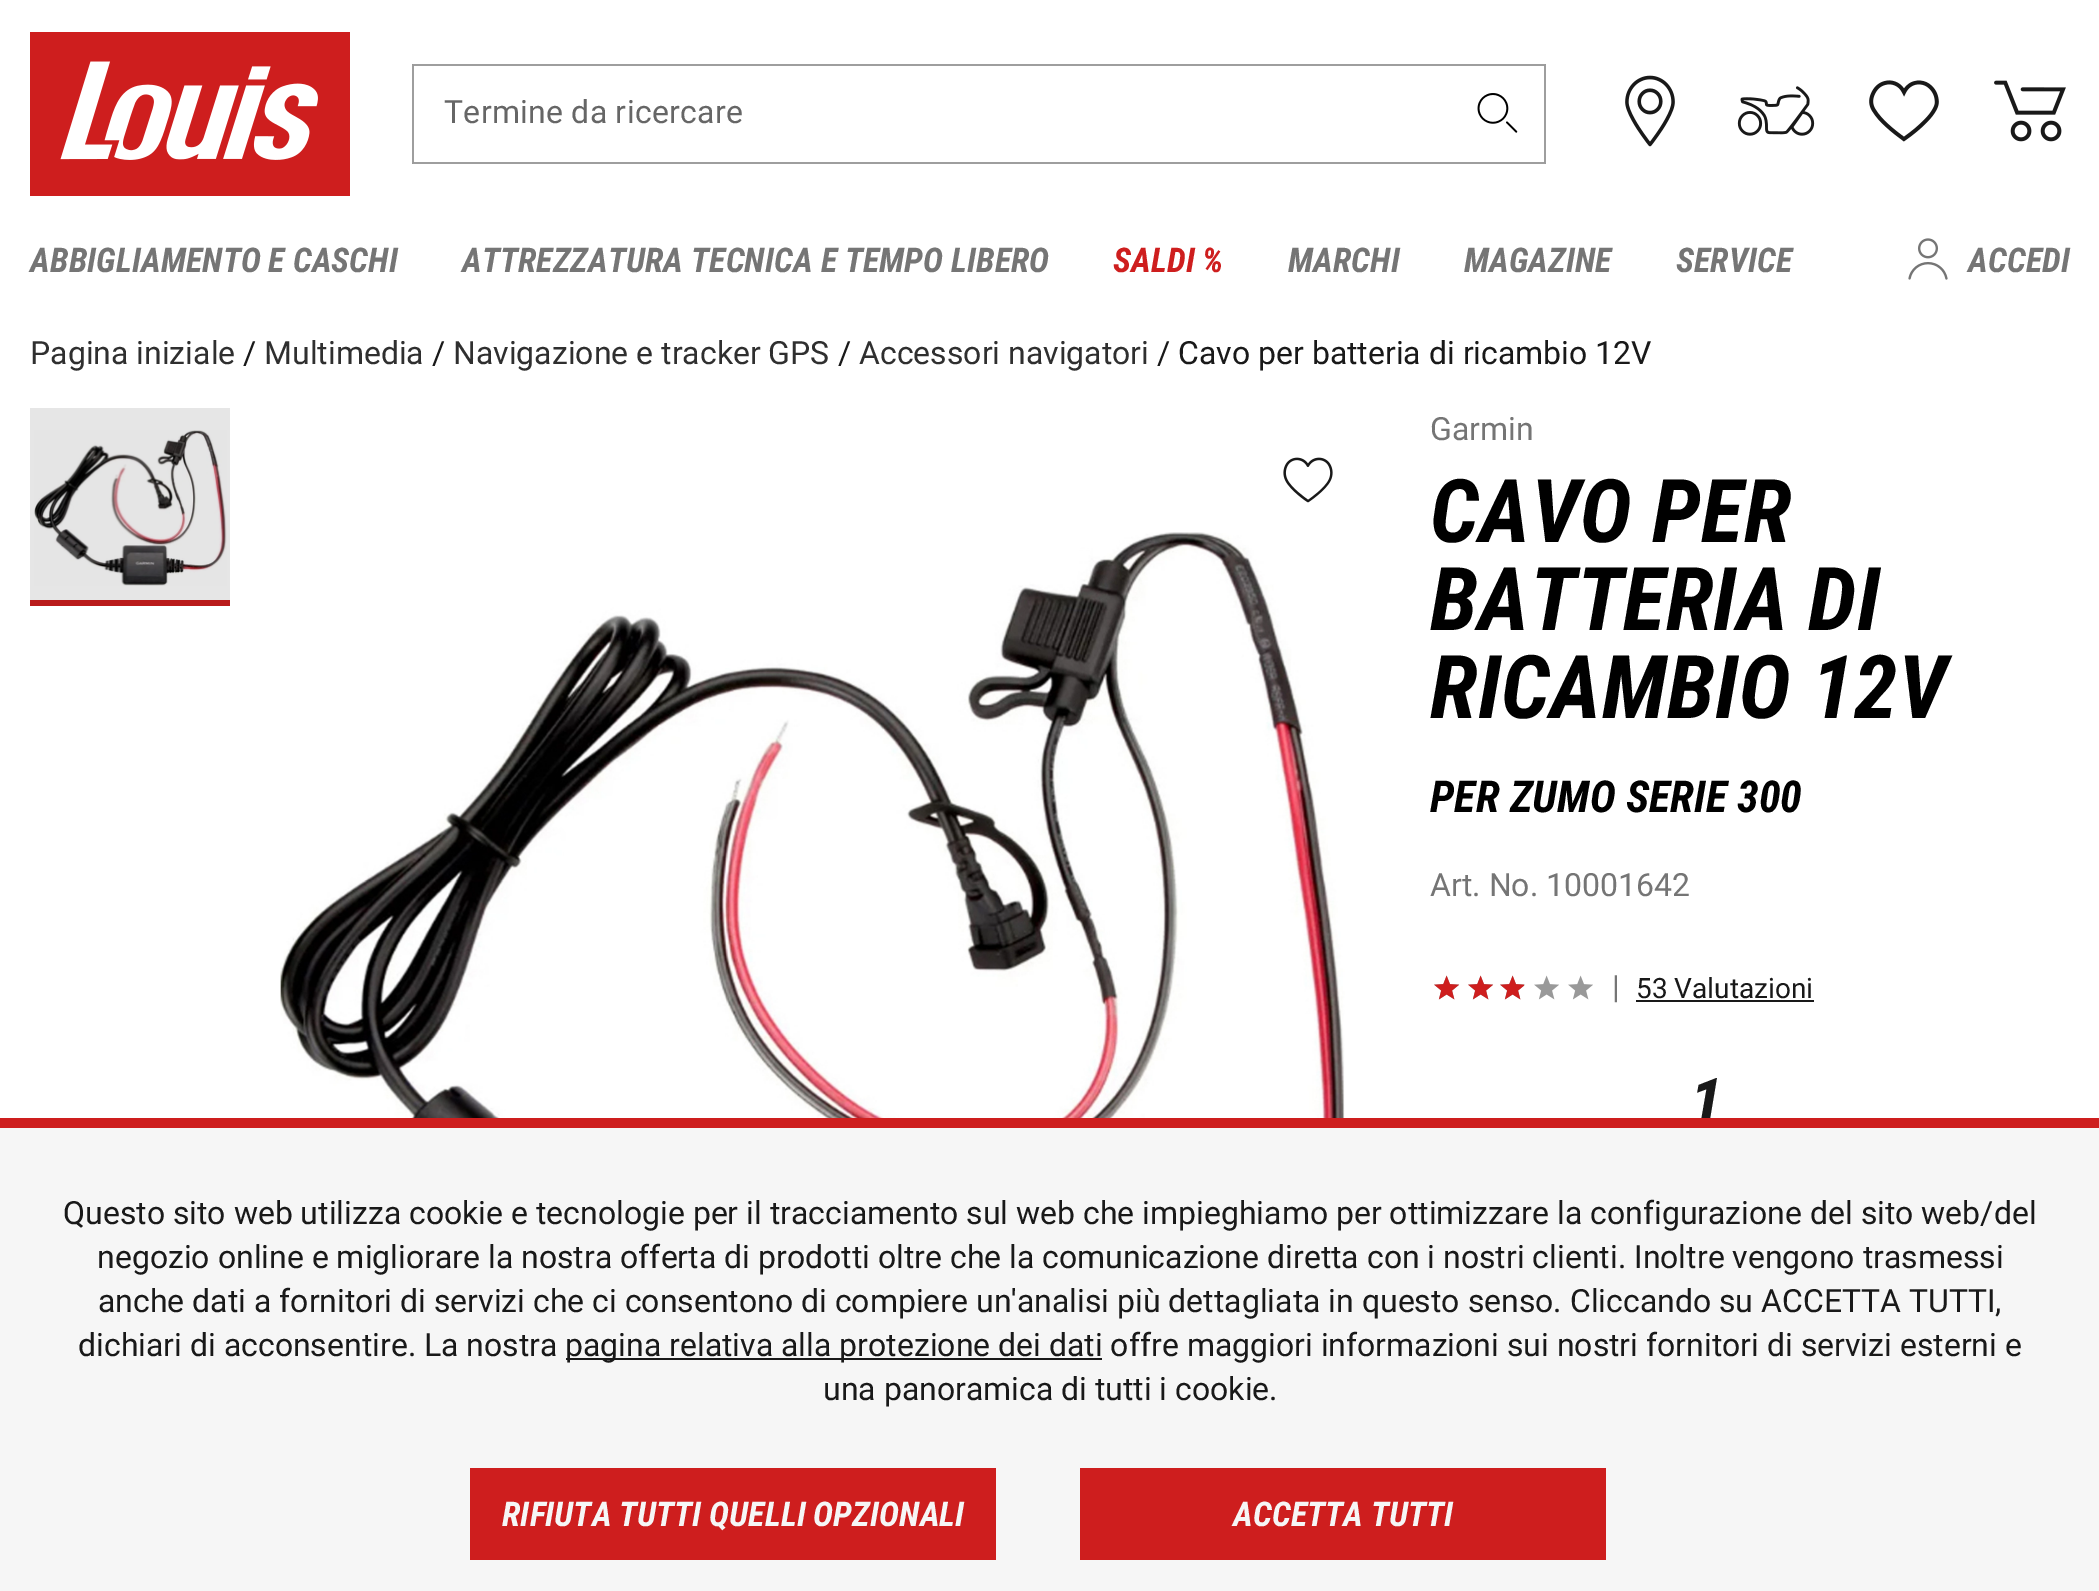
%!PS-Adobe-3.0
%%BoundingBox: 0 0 2099 1591
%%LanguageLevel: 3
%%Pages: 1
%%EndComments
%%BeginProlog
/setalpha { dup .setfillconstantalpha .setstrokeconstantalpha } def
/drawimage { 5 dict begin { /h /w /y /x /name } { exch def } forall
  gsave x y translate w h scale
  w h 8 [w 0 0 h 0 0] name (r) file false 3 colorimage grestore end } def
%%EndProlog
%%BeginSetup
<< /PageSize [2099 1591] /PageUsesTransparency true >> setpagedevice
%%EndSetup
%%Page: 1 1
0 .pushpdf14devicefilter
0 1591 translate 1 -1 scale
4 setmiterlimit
1 setgray
0 0 2099 1591 rectfill
0.902 setgray
30 408 200 192 rectfill
(images/1.raw) 30 32 320 164 drawimage
0.62 setgray
newpath 412 64 moveto 436 64 lineto 436 66 lineto 414 66 lineto closepath fill
newpath 436 164 moveto 412 164 lineto 414 162 lineto 436 162 lineto closepath fill
0.38 setalpha
0 setgray
newpath 412 164 moveto 412 64 lineto 414 66 lineto 414 162 lineto closepath fill
1 setalpha
0.62 setgray
436 64 308 2 rectfill
436 162 308 2 rectfill
newpath 744 64 moveto 1546 64 lineto 1544 66 lineto 744 66 lineto closepath fill
0.38 setalpha
0 setgray
newpath 1546 64 moveto 1546 164 lineto 1544 162 lineto 1544 66 lineto closepath fill
newpath 1546 164 moveto 744 164 lineto 744 162 lineto 1544 162 lineto closepath fill
1 setalpha
(images/2.raw) 1477 93 41 40 drawimage
(images/3.raw) 1625 75 50 72 drawimage
(images/4.raw) 1737 86 78 50 drawimage
(images/5.raw) 1869 80 70 62 drawimage
(images/6.raw) 1994 80 72 62 drawimage
(images/7.raw) 1908 238 40 42 drawimage
(images/8.raw) 34 430 193 156 drawimage
0.725 0.106 0.106 setrgbcolor
30 600 200 6 rectfill
(images/9.raw) 280 532 1065 586 drawimage
(images/10.raw) 1283 457 50 46 drawimage
(images/11.raw) 1434 975 25 25 drawimage
(images/12.raw) 1434 975 26 25 drawimage
(images/11.raw) 1468 975 25 25 drawimage
(images/12.raw) 1468 975 26 25 drawimage
(images/11.raw) 1500 975 25 25 drawimage
(images/13.raw) 1500 975 24 25 drawimage
(images/11.raw) 1534 975 25 25 drawimage
(images/11.raw) 1568 975 25 25 drawimage
0.098 setgray
1636 1000 178 2 rectfill
0.965 setgray
0 1128 2099 463 rectfill
0.098 setgray
566 1358 536 2 rectfill
0.808 0.118 0.118 setrgbcolor
470 1468 526 92 rectfill
1080 1468 526 92 rectfill
/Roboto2-Regular [32 0 0 -32 0 0] selectfont
0.4 setgray
444 123 moveto 0.25 0 (Termine da ricercare) ashow
/RobotoCondensed-BoldItalic [34 0 0 -34 0 0] selectfont
0.459 setgray
30 272 moveto (ABBIGLIAMENTO E CASCHI) show
462 272 moveto (ATTREZZATURA TECNICA E TEMPO LIBERO) show
0.808 0.118 0.118 setrgbcolor
1113 272 moveto (SALDI %) show
0.459 setgray
1288 272 moveto (MARCHI) show
1464 272 moveto (MAGAZINE) show
1676 272 moveto (SERVICE) show
1968 272 moveto (ACCEDI) show
/Roboto-Regular [32 0 0 -32 0 0] selectfont
0.184 setgray
30 364 moveto (Pagina iniziale) show
0.098 setgray
243 364 moveto (/) show
0.184 setgray
264 364 moveto (Multimedia) show
0.098 setgray
432 364 moveto (/) show
0.184 setgray
453 364 moveto (Navigazione e tracker GPS) show
0.098 setgray
838 364 moveto (/) show
0.184 setgray
859 364 moveto (Accessori navigatori) show
0.098 setgray
1157 364 moveto (/ Cavo per batteria di ricambio 12V) show
0.459 setgray
1430 440 moveto (Garmin) show
/RobotoCondensed-BoldItalic [88 0 0 -88 0 0] selectfont
0 setgray
1430 542 moveto (CAVO PER) show
1430 630 moveto (BATTERIA DI) show
1430 718 moveto (RICAMBIO 12V) show
/RobotoCondensed-BoldItalic [44 0 0 -44 0 0] selectfont
1430 812 moveto (PER ZUMO SERIE 300) show
/Roboto-Regular [32 0 0 -32 0 0] selectfont
0.459 setgray
1430 896 moveto (Art. No. 10001642) show
1612 998 moveto (|) show
/Roboto-Regular [28 0 0 -28 0 0] selectfont
0.098 setgray
1636 998 moveto (53 Valutazioni) show
/RobotoCondensed-BoldItalic [66 0 0 -66 0 0] selectfont
1690 1125 moveto (1) show
0.808 0.118 0.118 setrgbcolor
0 1118 2099 10 rectfill
/Roboto-Regular [32 0 0 -32 0 0] selectfont
0.098 setgray
63 1224 moveto (Questo sito web utilizza cookie e tecnologie per il tracciamento sul web che impieghiamo per ottimizzare la configurazione del sito web/del) show
97 1268 moveto (negozio online e migliorare la nostra offerta di prodotti oltre che la comunicazione diretta con i nostri clienti. Inoltre vengono trasmessi) show
98 1312 moveto (anche dati a fornitori di servizi che ci consentono di compiere un'analisi più dettagliata in questo senso. Cliccando su ACCETTA TUTTI,) show
78 1356 moveto (dichiari di acconsentire. La nostra) show
565 1356 moveto (pagina relativa alla protezione dei dati offre maggiori informazioni sui nostri fornitori di servizi esterni e) show
823 1400 moveto (una panoramica di tutti i cookie.) show
/RobotoCondensed-BoldItalic [34 0 0 -34 0 0] selectfont
0.965 setgray
502 1526 moveto (RIFIUTA TUTTI QUELLI OPZIONALI) show
1233 1526 moveto (ACCETTA TUTTI) show
.poppdf14devicefilter showpage
%%EOF
